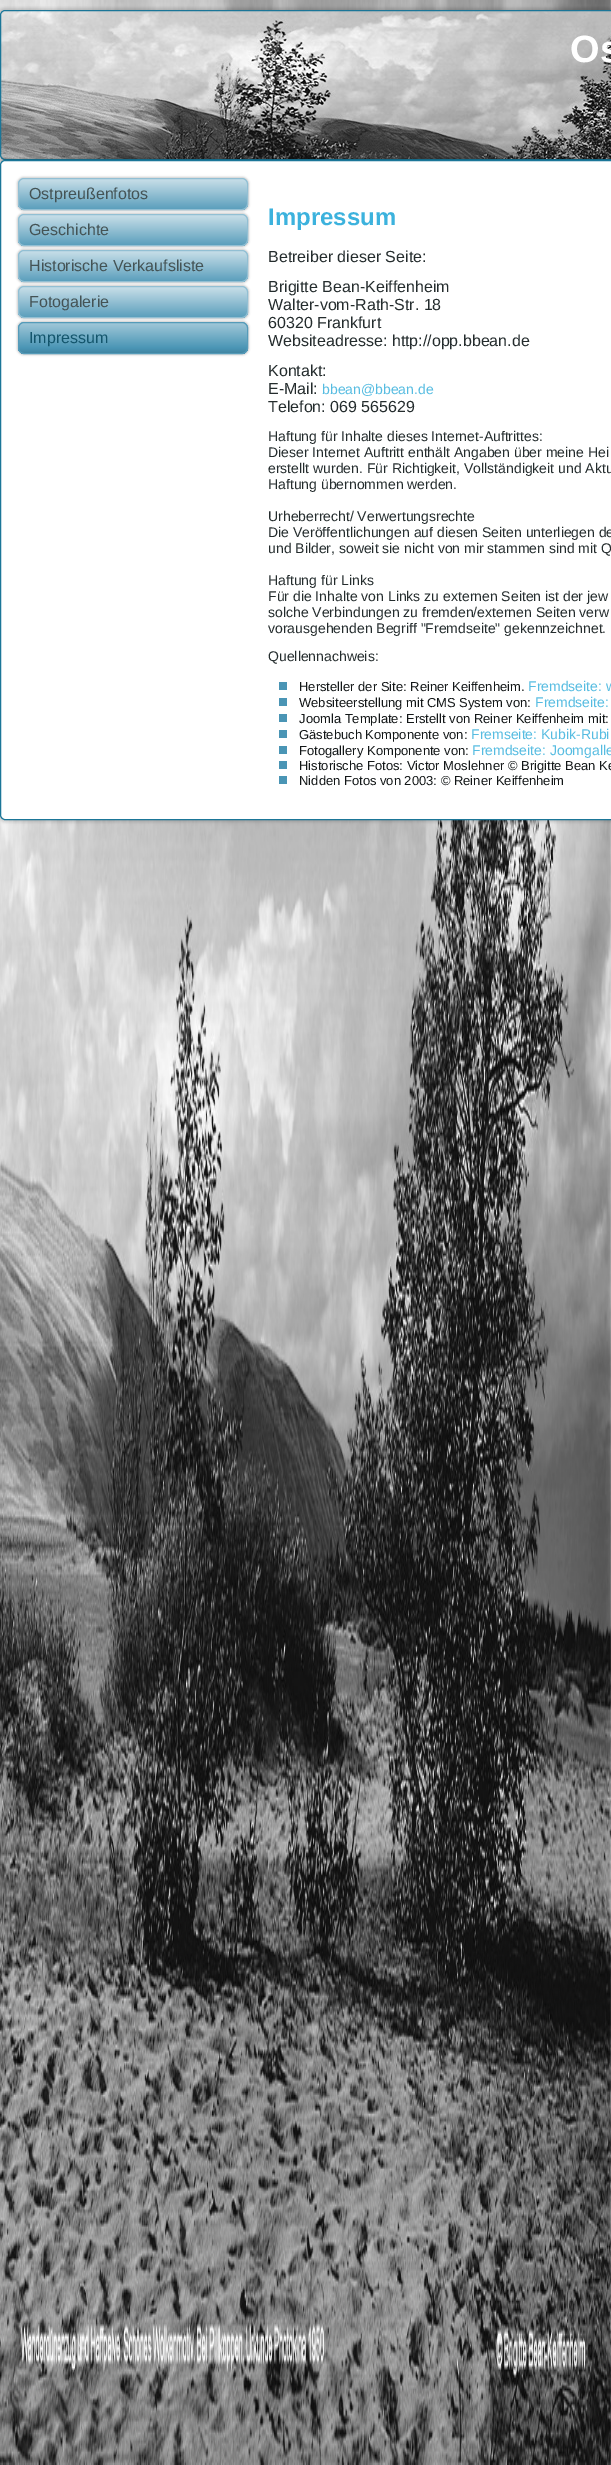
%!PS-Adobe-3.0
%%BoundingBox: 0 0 611 2465
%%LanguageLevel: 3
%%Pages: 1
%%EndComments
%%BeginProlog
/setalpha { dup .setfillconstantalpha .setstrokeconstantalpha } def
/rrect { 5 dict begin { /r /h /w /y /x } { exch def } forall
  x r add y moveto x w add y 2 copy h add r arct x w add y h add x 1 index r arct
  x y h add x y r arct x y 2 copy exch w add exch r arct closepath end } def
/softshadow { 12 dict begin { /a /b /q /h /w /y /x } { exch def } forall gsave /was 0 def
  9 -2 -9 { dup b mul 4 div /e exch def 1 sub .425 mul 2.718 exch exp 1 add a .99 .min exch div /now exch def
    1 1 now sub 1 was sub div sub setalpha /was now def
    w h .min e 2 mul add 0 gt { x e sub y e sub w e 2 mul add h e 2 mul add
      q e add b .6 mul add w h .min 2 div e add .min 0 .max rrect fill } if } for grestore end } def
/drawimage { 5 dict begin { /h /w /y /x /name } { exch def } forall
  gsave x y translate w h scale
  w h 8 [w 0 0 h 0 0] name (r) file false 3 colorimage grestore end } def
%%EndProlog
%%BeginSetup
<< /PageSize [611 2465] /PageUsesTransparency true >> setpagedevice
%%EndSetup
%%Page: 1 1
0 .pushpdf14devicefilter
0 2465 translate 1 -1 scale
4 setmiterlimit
1 setgray
0 0 611 2465 rectfill
(images/1.raw) 0 0 611 2465 drawimage
0 setgray
-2 8 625 154 7 1.5 0.15 softshadow
(images/2.raw) 0 10 611 150 drawimage
0.106 0.463 0.596 setrgbcolor
0.5 10.5 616 149 4.5 rrect stroke
0 setgray
-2 158 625 664 7 1.5 0.15 softshadow
1 setgray
0.5 160.5 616 659 4.5 rrect gsave fill grestore
0.106 0.463 0.596 setrgbcolor
stroke
0 setgray
17 177 232 34 7 1 0.2 softshadow
gsave 18.5 178.5 229 31 5.5 rrect clip newpath
<< /ShadingType 2 /ColorSpace /DeviceRGB /Coords [133 178 133 210] /Extend [true true] /Function << /FunctionType 2 /Domain [0 1] /C0 [0.8 0.882 0.918] /C1 [0.345 0.616 0.733] /N 1 >> >> shfill grestore
0.573 0.749 0.827 setrgbcolor
18.5 178.5 229 31 5.5 rrect stroke
0 setgray
17 213 232 34 7 1 0.2 softshadow
gsave 18.5 214.5 229 31 5.5 rrect clip newpath
<< /ShadingType 2 /ColorSpace /DeviceRGB /Coords [133 214 133 246] /Extend [true true] /Function << /FunctionType 2 /Domain [0 1] /C0 [0.8 0.882 0.918] /C1 [0.345 0.616 0.733] /N 1 >> >> shfill grestore
0.573 0.749 0.827 setrgbcolor
18.5 214.5 229 31 5.5 rrect stroke
0 setgray
17 249 232 34 7 1 0.2 softshadow
gsave 18.5 250.5 229 31 5.5 rrect clip newpath
<< /ShadingType 2 /ColorSpace /DeviceRGB /Coords [133 250 133 282] /Extend [true true] /Function << /FunctionType 2 /Domain [0 1] /C0 [0.8 0.882 0.918] /C1 [0.345 0.616 0.733] /N 1 >> >> shfill grestore
0.573 0.749 0.827 setrgbcolor
18.5 250.5 229 31 5.5 rrect stroke
0 setgray
17 285 232 34 7 1 0.2 softshadow
gsave 18.5 286.5 229 31 5.5 rrect clip newpath
<< /ShadingType 2 /ColorSpace /DeviceRGB /Coords [133 286 133 318] /Extend [true true] /Function << /FunctionType 2 /Domain [0 1] /C0 [0.8 0.882 0.918] /C1 [0.345 0.616 0.733] /N 1 >> >> shfill grestore
0.573 0.749 0.827 setrgbcolor
18.5 286.5 229 31 5.5 rrect stroke
0 setgray
17 321 232 34 7 1 0.2 softshadow
gsave 18.5 322.5 229 31 5.5 rrect clip newpath
<< /ShadingType 2 /ColorSpace /DeviceRGB /Coords [133 322 133 354] /Extend [true true] /Function << /FunctionType 3 /Domain [0 1] /Functions [<< /FunctionType 2 /Domain [0 1] /C0 [0.643 0.792 0.855] /C1 [0.29 0.584 0.71] /N 1 >> << /FunctionType 2 /Domain [0 1] /C0 [0.29 0.584 0.71] /C1 [0.255 0.514 0.624] /N 1 >>] /Bounds [0.81] /Encode [0 1 0 1] >> >> shfill grestore
0.333 0.608 0.725 setrgbcolor
18.5 322.5 229 31 5.5 rrect stroke
0.29 0.584 0.71 setrgbcolor
279 682 8 8 rectfill
279 698 8 8 rectfill
279 714 8 8 rectfill
279 730 8 8 rectfill
279 746 8 8 rectfill
279 761 8 8 rectfill
279 776 8 8 rectfill
/LiberationSans-Bold [38 0 0 -38 0 0] selectfont
1 setgray
570 62 moveto (Os) show
/LiberationSans-Regular [16 0 0 -16 0 0] selectfont
0.267 0.325 0.333 setrgbcolor
29 199 moveto (Ostpreußenfotos) show
29 235 moveto (Geschichte) show
29 271 moveto (Historische Verkaufsliste) show
29 307 moveto (Fotogalerie) show
0.075 0.333 0.424 setrgbcolor
29 343 moveto (Impressum) show
/LiberationSans-Bold [24 0 0 -24 0 0] selectfont
0.235 0.698 0.867 setrgbcolor
268 225 moveto (Impressum) show
/LiberationSans-Regular [16 0 0 -16 0 0] selectfont
0.141 0.173 0.176 setrgbcolor
268 262 moveto (Betreiber dieser Seite:) show
268 292 moveto (Brigitte Bean-Keiffenheim) show
268 310 moveto (Walter-vom-Rath-Str. 18) show
268 328 moveto (60320 Frankfurt) show
268 346 moveto (Websiteadresse: http://opp.bbean.de) show
268 376 moveto (Kontakt:) show
268 394 moveto (E-Mail:) show
/LiberationSans-Regular [14 0 0 -14 0 0] selectfont
0.337 0.737 0.882 setrgbcolor
322 394 moveto (bbean@bbean.de) show
/LiberationSans-Regular [16 0 0 -16 0 0] selectfont
0.141 0.173 0.176 setrgbcolor
268 412 moveto (Telefon: 069 565629) show
/LiberationSans-Regular [14 0 0 -14 0 0] selectfont
268 441 moveto (Haftung für Inhalte dieses Internet-Auftrittes:) show
268 457 moveto (Dieser Internet Auftritt enthält Angaben über meine Hei) show
268 473 moveto (erstellt wurden. Für Richtigkeit, Vollständigkeit und Aktu) show
268 489 moveto (Haftung übernommen werden.) show
268 521 moveto (Urheberrecht/ Verwertungsrechte) show
268 537 moveto (Die Veröffentlichungen auf diesen Seiten unterliegen de) show
268 553 moveto (und Bilder, soweit sie nicht von mir stammen sind mit Q) show
268 585 moveto (Haftung für Links) show
268 601 moveto (Für die Inhalte von Links zu externen Seiten ist der jew) show
268 617 moveto (solche Verbindungen zu fremden/externen Seiten verw) show
268 633 moveto (vorausgehenden Begriff "Fremdseite" gekennzeichnet.) show
268 661 moveto (Quellennachweis:) show
/LiberationSans-Regular [13 0 0 -13 0 0] selectfont
0.071 0.086 0.09 setrgbcolor
299 691 moveto (Hersteller der Site: Reiner Keiffenheim.) show
/LiberationSans-Regular [14 0 0 -14 0 0] selectfont
0.337 0.737 0.882 setrgbcolor
528 691 moveto (Fremdseite: w) show
/LiberationSans-Regular [13 0 0 -13 0 0] selectfont
0.071 0.086 0.09 setrgbcolor
299 707 moveto (Websiteerstellung mit CMS System von:) show
/LiberationSans-Regular [14 0 0 -14 0 0] selectfont
0.337 0.737 0.882 setrgbcolor
535 707 moveto (Fremdseite:) show
/LiberationSans-Regular [13 0 0 -13 0 0] selectfont
0.071 0.086 0.09 setrgbcolor
299 723 moveto (Joomla Template: Erstellt von Reiner Keiffenheim mit:) show
299 739 moveto (Gästebuch Komponente von:) show
/LiberationSans-Regular [14 0 0 -14 0 0] selectfont
0.337 0.737 0.882 setrgbcolor
471 739 moveto (Fremseite: Kubik-Rubi) show
/LiberationSans-Regular [13 0 0 -13 0 0] selectfont
0.071 0.086 0.09 setrgbcolor
299 755 moveto (Fotogallery Komponente von:) show
/LiberationSans-Regular [14 0 0 -14 0 0] selectfont
0.337 0.737 0.882 setrgbcolor
472 755 moveto (Fremdseite: Joomgalle) show
/LiberationSans-Regular [13 0 0 -13 0 0] selectfont
0.071 0.086 0.09 setrgbcolor
299 770 moveto (Historische Fotos: Victor Moslehner © Brigitte Bean Ke) show
299 785 moveto (Nidden Fotos von 2003: © Reiner Keiffenheim) show
.poppdf14devicefilter showpage
%%EOF
